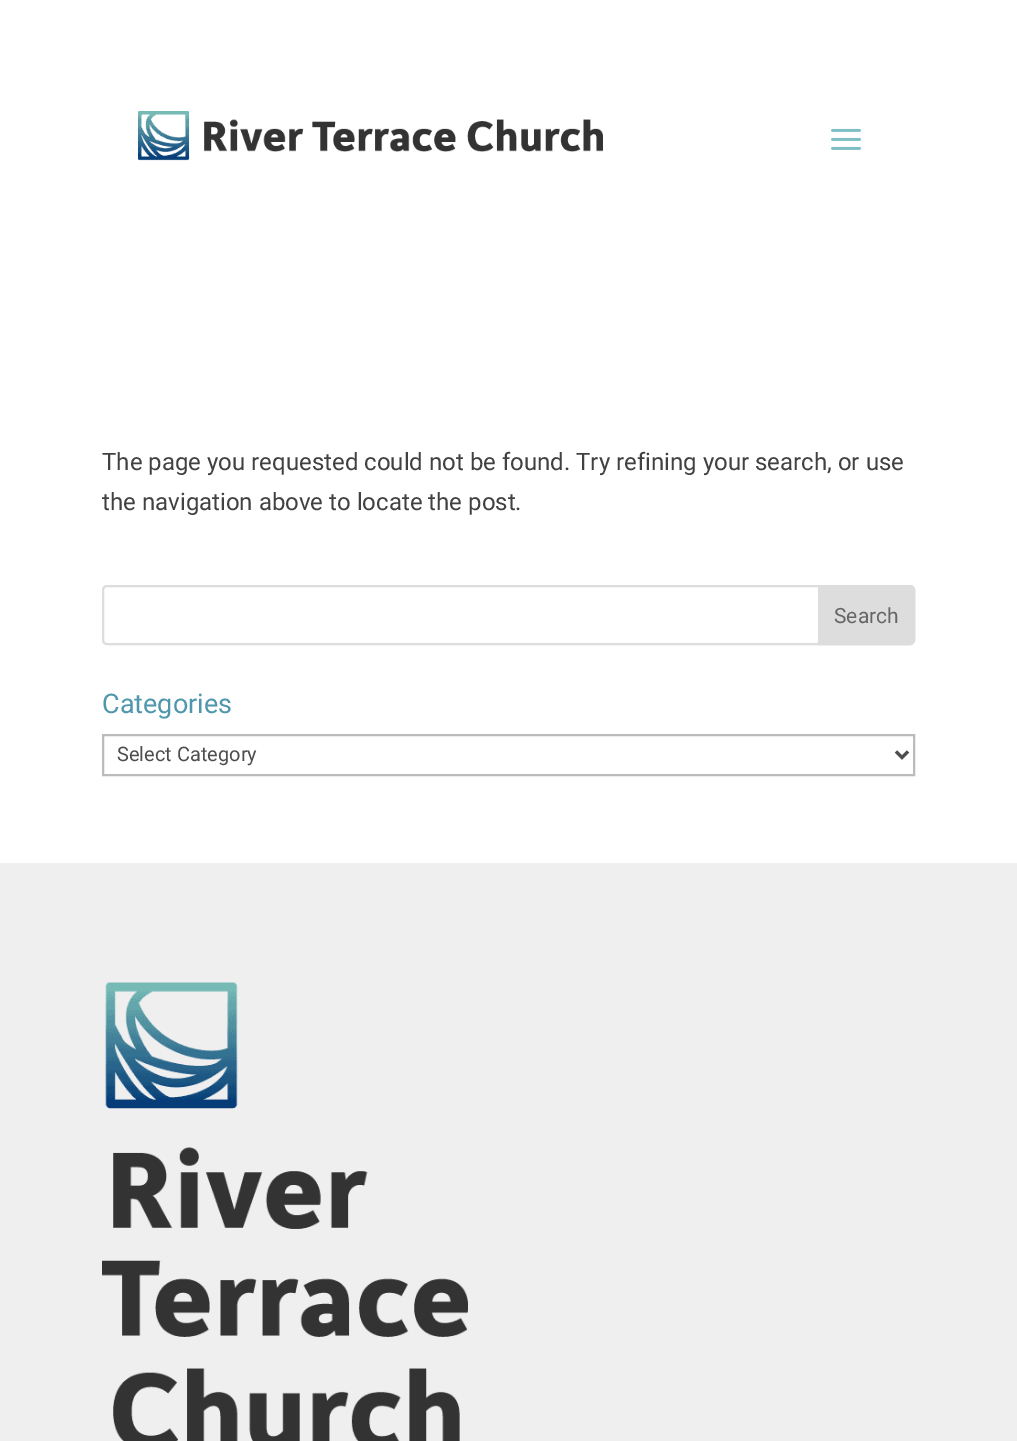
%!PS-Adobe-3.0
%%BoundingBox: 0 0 1017 1441
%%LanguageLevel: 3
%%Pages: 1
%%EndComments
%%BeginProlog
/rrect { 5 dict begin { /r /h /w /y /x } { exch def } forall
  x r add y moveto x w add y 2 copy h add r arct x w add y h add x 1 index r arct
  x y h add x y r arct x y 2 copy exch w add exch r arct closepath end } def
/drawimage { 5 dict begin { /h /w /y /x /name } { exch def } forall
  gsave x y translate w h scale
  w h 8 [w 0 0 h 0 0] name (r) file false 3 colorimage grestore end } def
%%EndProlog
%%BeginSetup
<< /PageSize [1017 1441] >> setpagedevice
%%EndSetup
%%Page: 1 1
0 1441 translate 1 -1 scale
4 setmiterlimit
1 setgray
0 0 1017 1441 rectfill
(images/1.raw) 138 111 465 50 drawimage
(images/2.raw) 831 128 30 22 drawimage
0.867 setgray
2 setlinewidth
103 586 811 58 4 rrect stroke
newpath 819 586 moveto 910 586 lineto 912 586 914 588 914 590 curveto 914 640 lineto 914 642 912 644 910 644 curveto 819 644 lineto closepath gsave fill grestore
stroke
0.733 setgray
103 735 811 40 rectstroke
0.306 setgray
3 setlinewidth
newpath 896 751.5 moveto 902 757.5 lineto 908 751.5 lineto stroke
0.937 setgray
0 863 1017 578 rectfill
(images/3.raw) 102 982 366 459 drawimage
/Roboto-Regular [24 0 0 -24 0 0] selectfont
0.255 setgray
102 470 moveto (The page you requested could not be found. Try refining your search, or use) show
102 510 moveto (the navigation above to locate the post.) show
/Roboto-Regular [21 0 0 -21 0 0] selectfont
0.4 setgray
834 623 moveto (Search) show
/Roboto-Regular [27 0 0 -27 0 0] selectfont
0.314 0.592 0.678 setrgbcolor
102 713 moveto (Categories) show
/Roboto-Regular [20 0 0 -20 0 0] selectfont
0.306 setgray
117 761 moveto (Select Category) show
showpage
%%EOF
